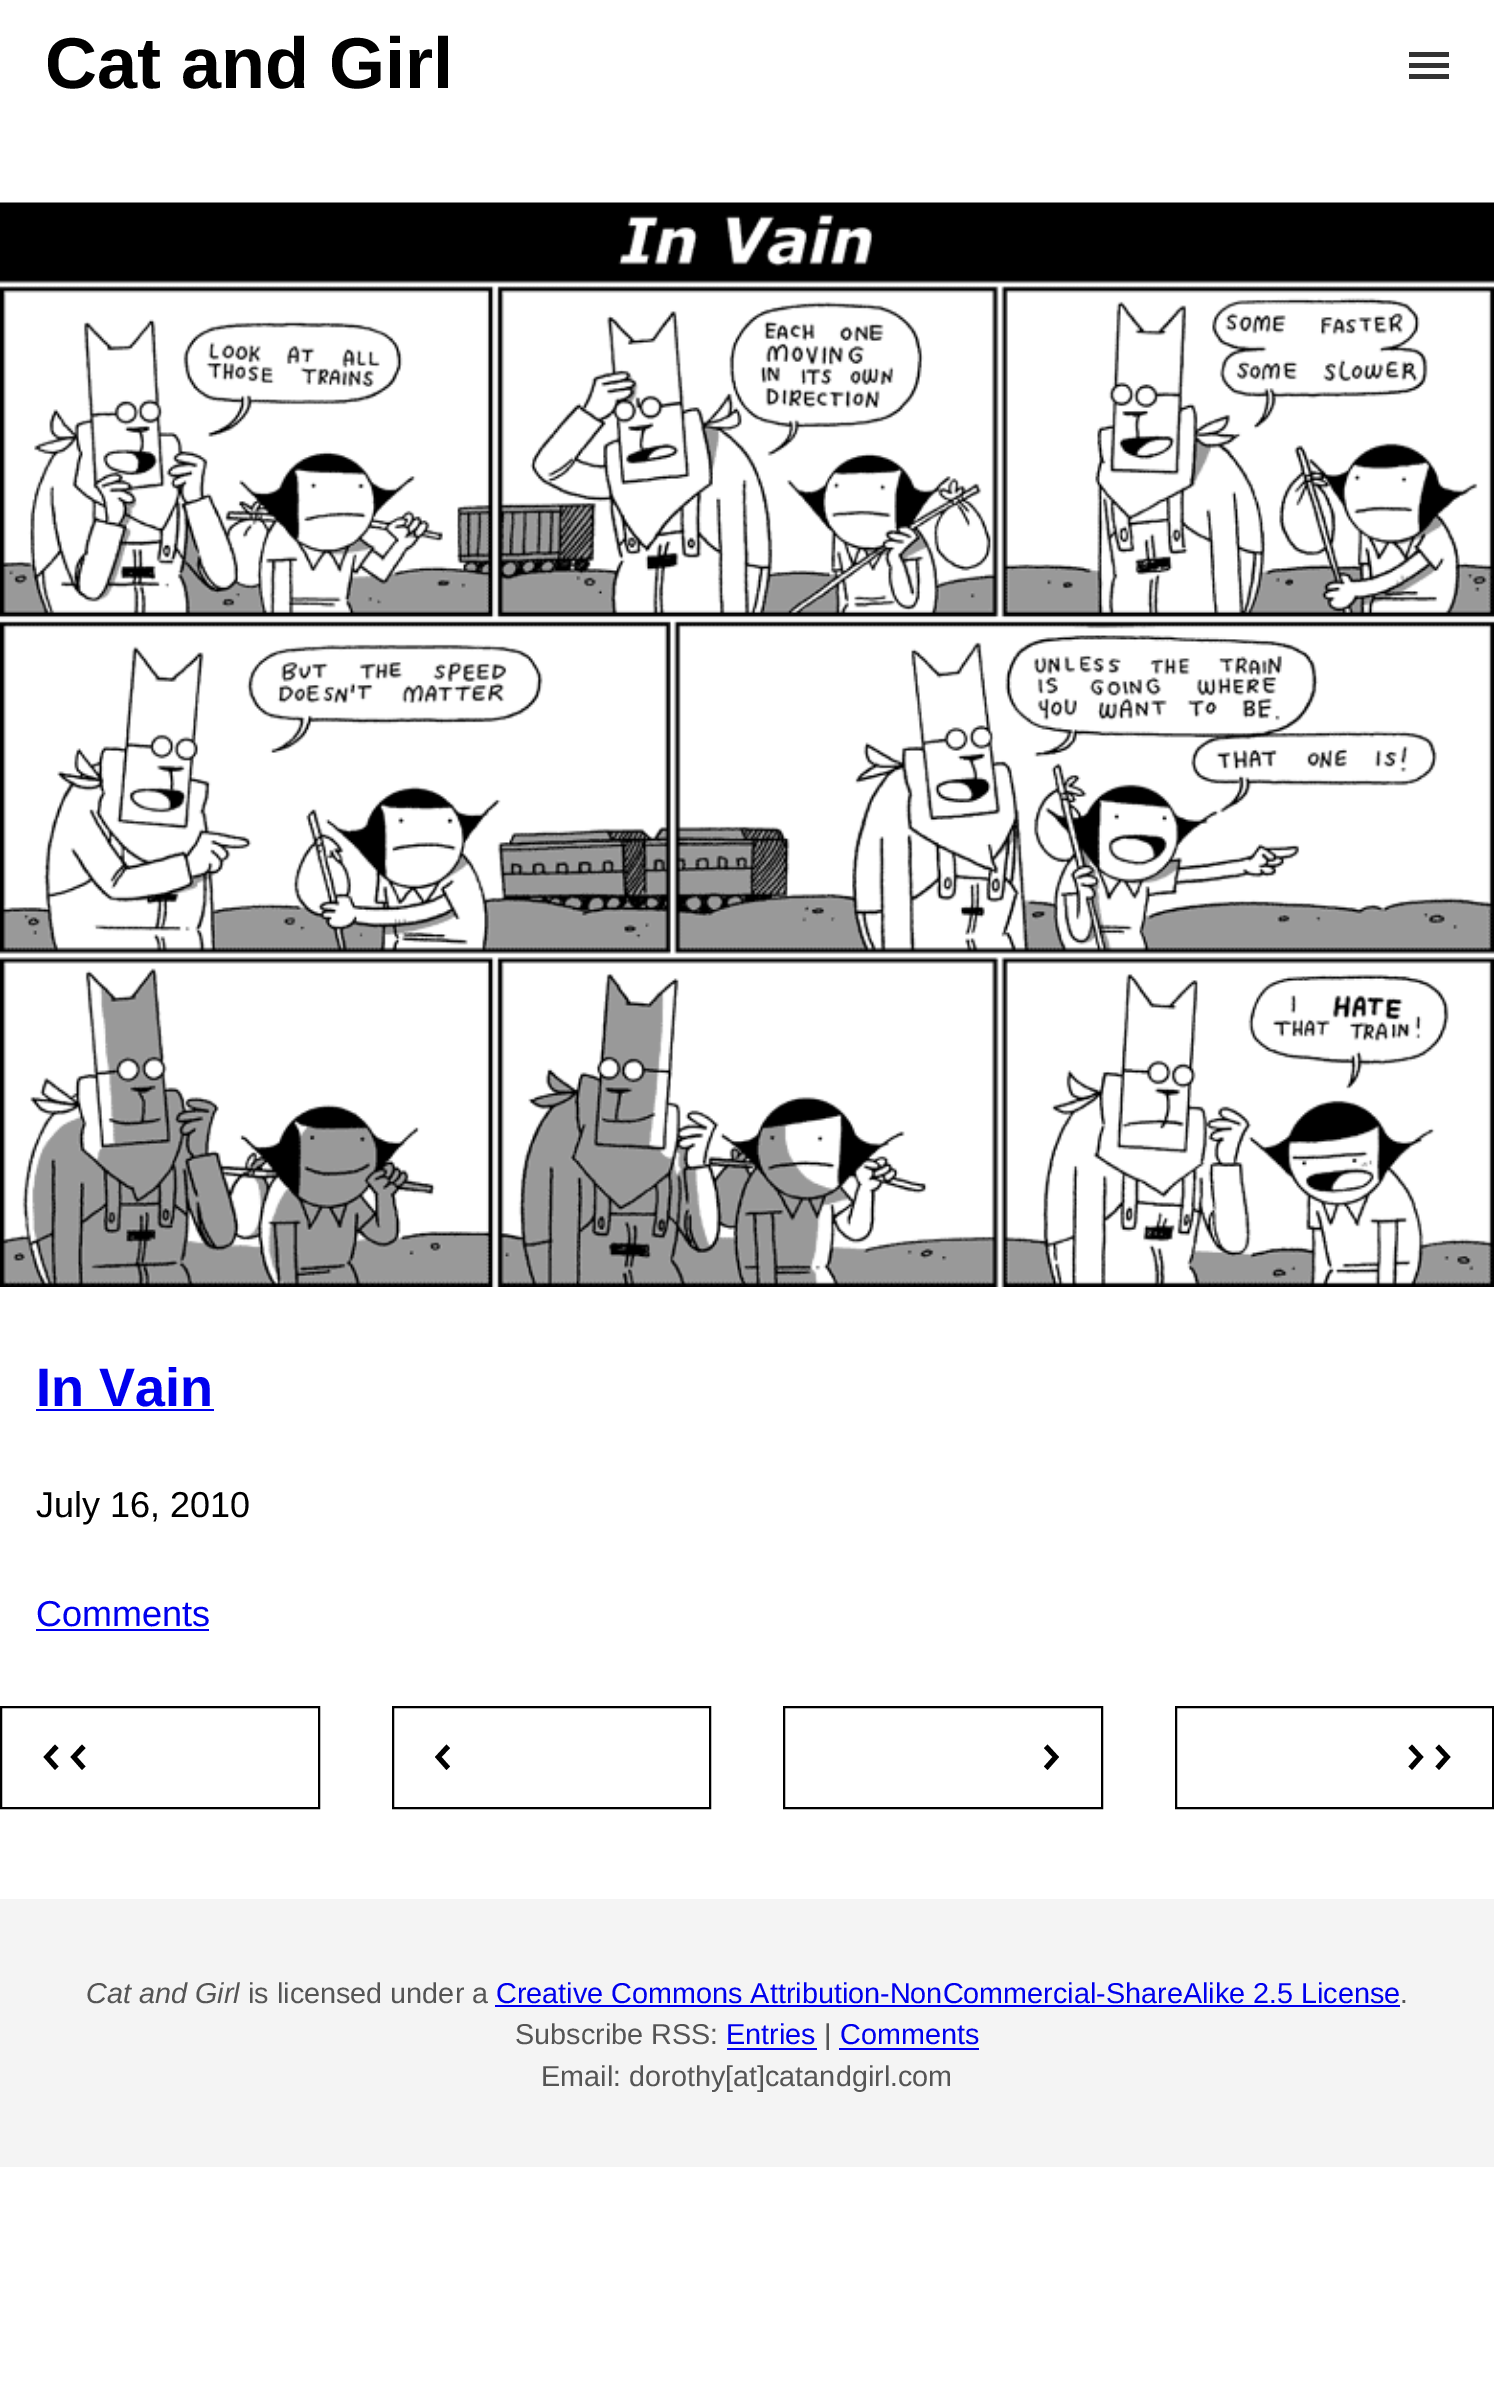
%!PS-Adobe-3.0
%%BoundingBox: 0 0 1494 2391
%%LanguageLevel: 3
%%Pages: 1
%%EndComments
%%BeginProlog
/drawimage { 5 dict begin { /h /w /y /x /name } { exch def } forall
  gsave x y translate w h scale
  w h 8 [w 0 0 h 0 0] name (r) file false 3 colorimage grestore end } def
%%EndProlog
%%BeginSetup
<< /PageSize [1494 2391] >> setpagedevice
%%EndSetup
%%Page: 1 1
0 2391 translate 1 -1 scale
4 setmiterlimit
1 setgray
0 0 1494 2391 rectfill
0.2 setgray
1409 63 40 5 rectfill
1409 52 40 5 rectfill
1409 74 40 5 rectfill
(images/1.raw) 0 202 1494 1085 drawimage
0 0 0.933 setrgbcolor
36 1409 178 2 rectfill
36 1629 173 2 rectfill
0 setgray
2 setlinewidth
1 1707 318 101 rectstroke
newpath 55 1744.5 moveto 58.5 1748 lineto 50 1757 lineto 58.5 1766.5 lineto 55 1770 lineto 43.5 1757 lineto closepath 82 1744.5 moveto 85.5 1748 lineto 77 1757 lineto 85.5 1766.5 lineto 82 1770 lineto 70.5 1757 lineto closepath fill
393 1707 317 101 rectstroke
newpath 446.5 1744.5 moveto 450 1748 lineto 441.5 1757 lineto 450 1766.5 lineto 446.5 1770 lineto 435 1757 lineto closepath fill
784 1707 318 101 rectstroke
newpath 1047.5 1744.5 moveto 1059 1757 lineto 1047.5 1770 lineto 1044 1766.5 lineto 1052.5 1757 lineto 1044 1748 lineto closepath fill
1176 1707 317 101 rectstroke
newpath 1412 1744.5 moveto 1423.5 1757 lineto 1412 1770 lineto 1408.5 1766.5 lineto 1417 1757 lineto 1408.5 1748 lineto closepath 1439 1744.5 moveto 1450.5 1757 lineto 1439 1770 lineto 1435.5 1766.5 lineto 1444 1757 lineto 1435.5 1748 lineto closepath fill
0.957 setgray
0 1899 1494 268 rectfill
0 0 0.933 setrgbcolor
495 2005 905 2 rectfill
727 2048 90 2 rectfill
839 2048 140 2 rectfill
/LiberationSans-Bold [72 0 0 -72 0 0] selectfont
0 setgray
45 88 moveto (Cat and Girl) show
/LiberationSans-Bold [54 0 0 -54 0 0] selectfont
0 0 0.933 setrgbcolor
36 1406 moveto (In Vain) show
/LiberationSans-Regular [36 0 0 -36 0 0] selectfont
0 setgray
36 1517 moveto (July 16, 2010) show
0 0 0.933 setrgbcolor
36 1626 moveto (Comments) show
/LiberationSans-Italic [28.8 0 0 -28.8 0 0] selectfont
0.333 setgray
86 2003 moveto (Cat and Girl) show
/LiberationSans-Regular [28.8 0 0 -28.8 0 0] selectfont
248 2003 moveto (is licensed under a) show
0 0 0.933 setrgbcolor
496 2003 moveto (Creative Commons Attribution-NonCommercial-ShareAlike 2.5 License) show
0.333 setgray
1400 2003 moveto (.) show
515 2044 moveto (Subscribe RSS:) show
0 0 0.933 setrgbcolor
726 2044 moveto (Entries) show
0.333 setgray
824 2044 moveto (|) show
0 0 0.933 setrgbcolor
840 2044 moveto (Comments) show
0.333 setgray
541 2086 moveto (Email: dorothy[at]catandgirl.com) show
showpage
%%EOF
